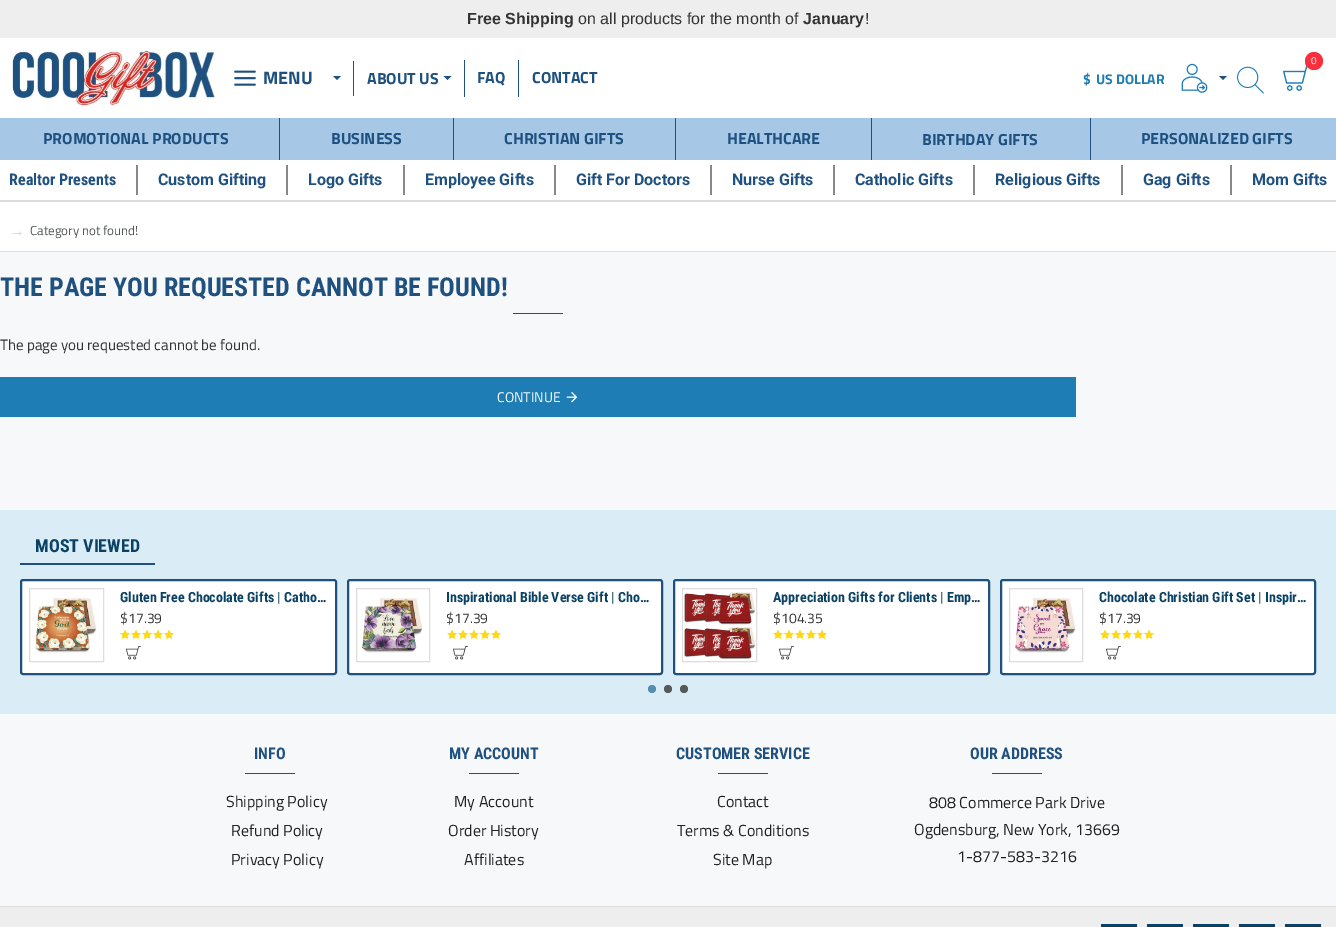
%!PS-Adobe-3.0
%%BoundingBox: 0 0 1336 927
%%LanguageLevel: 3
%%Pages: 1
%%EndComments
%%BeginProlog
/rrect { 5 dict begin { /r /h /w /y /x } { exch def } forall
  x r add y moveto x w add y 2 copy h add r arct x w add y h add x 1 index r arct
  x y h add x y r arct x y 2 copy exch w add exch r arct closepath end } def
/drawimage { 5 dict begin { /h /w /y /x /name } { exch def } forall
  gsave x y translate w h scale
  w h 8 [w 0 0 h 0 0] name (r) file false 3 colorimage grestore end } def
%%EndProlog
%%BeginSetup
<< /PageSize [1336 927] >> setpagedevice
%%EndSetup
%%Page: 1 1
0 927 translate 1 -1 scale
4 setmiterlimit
0.933 setgray
0 0 1336 927 rectfill
0.969 0.973 0.98 setrgbcolor
0 252 1336 654 rectfill
1 setgray
0 38 1336 80 rectfill
(images/1.raw) 12 50 203 56 drawimage
(images/2.raw) 234 70 22 16 drawimage
0.122 0.318 0.502 setrgbcolor
newpath 333 76 moveto 341 76 lineto 337 80 lineto closepath fill
353 61 1 35 rectfill
newpath 443.5 76 moveto 451.5 76 lineto 447.5 80 lineto closepath fill
464 60 1 37 rectfill
518 60 1 37 rectfill
(images/3.raw) 1283 65 26 26 drawimage
0.973 0.188 0.239 setrgbcolor
newpath 1314 61 9 0 360 arc closepath fill
(images/4.raw) 1181 63 27 30 drawimage
0.122 0.318 0.502 setrgbcolor
newpath 1219 76 moveto 1227 76 lineto 1223 80 lineto closepath fill
(images/5.raw) 1237 66 27 28 drawimage
0.651 0.784 0.902 setrgbcolor
0 118 1336 42 rectfill
0.122 0.318 0.502 setrgbcolor
279 118 1 42 rectfill
453 118 1 42 rectfill
675 118 1 42 rectfill
871 118 1 42 rectfill
1090 118 1 42 rectfill
0.867 setgray
0 200 1336 2 rectfill
1 setgray
0 160 1336 40 rectfill
0.533 setgray
136 165 2 30 rectfill
286 165 2 30 rectfill
403 165 2 30 rectfill
554 165 2 30 rectfill
710 165 2 30 rectfill
833 165 2 30 rectfill
973 165 2 30 rectfill
1121 165 2 30 rectfill
1230 165 2 30 rectfill
1 setgray
0 202 1336 49 rectfill
0.867 setgray
0 251 1336 1 rectfill
0.122 0.318 0.502 setrgbcolor
513 313 50 1 rectfill
0.118 0.49 0.706 setrgbcolor
0 377 1076 40 rectfill
(images/6.raw) 566 392 12 11 drawimage
0.855 0.929 0.965 setrgbcolor
0 510 1336 204 rectfill
0.122 0.318 0.502 setrgbcolor
20 563 135 2 rectfill
1 setgray
21 580 315 94 2 rrect gsave fill grestore
0.122 0.318 0.502 setrgbcolor
2 setlinewidth
stroke
0.867 setgray
1 setlinewidth
29.5 588.5 74 73 rectstroke
(images/7.raw) 34 598 63 55 drawimage
(images/8.raw) 120 630 10 9 drawimage
(images/9.raw) 120 630 10 9 drawimage
(images/8.raw) 131 630 10 9 drawimage
(images/9.raw) 131 630 10 9 drawimage
(images/8.raw) 142 630 10 9 drawimage
(images/9.raw) 142 630 10 9 drawimage
(images/8.raw) 153 630 10 9 drawimage
(images/9.raw) 153 630 10 9 drawimage
(images/8.raw) 164 630 10 9 drawimage
(images/9.raw) 164 630 10 9 drawimage
(images/10.raw) 126 646 15 14 drawimage
1 setgray
348 580 314 94 2 rrect gsave fill grestore
0.122 0.318 0.502 setrgbcolor
2 setlinewidth
stroke
0.867 setgray
1 setlinewidth
356.5 588.5 73 73 rectstroke
(images/11.raw) 362 598 61 55 drawimage
(images/8.raw) 447 630 10 9 drawimage
(images/9.raw) 447 630 10 9 drawimage
(images/8.raw) 458 630 10 9 drawimage
(images/9.raw) 458 630 10 9 drawimage
(images/8.raw) 469 630 10 9 drawimage
(images/9.raw) 469 630 10 9 drawimage
(images/8.raw) 480 630 10 9 drawimage
(images/9.raw) 480 630 10 9 drawimage
(images/8.raw) 491 630 10 9 drawimage
(images/9.raw) 491 630 10 9 drawimage
(images/10.raw) 453 646 15 14 drawimage
1 setgray
674 580 315 94 2 rrect gsave fill grestore
0.122 0.318 0.502 setrgbcolor
2 setlinewidth
stroke
0.867 setgray
1 setlinewidth
682.5 588.5 74 73 rectstroke
(images/12.raw) 683 591 73 69 drawimage
(images/8.raw) 773 630 10 9 drawimage
(images/9.raw) 773 630 10 9 drawimage
(images/8.raw) 784 630 10 9 drawimage
(images/9.raw) 784 630 10 9 drawimage
(images/8.raw) 795 630 10 9 drawimage
(images/9.raw) 795 630 10 9 drawimage
(images/8.raw) 806 630 10 9 drawimage
(images/9.raw) 806 630 10 9 drawimage
(images/8.raw) 817 630 10 9 drawimage
(images/9.raw) 817 630 10 9 drawimage
(images/10.raw) 779 646 15 14 drawimage
1 setgray
1001 580 314 94 2 rrect gsave fill grestore
0.122 0.318 0.502 setrgbcolor
2 setlinewidth
stroke
0.867 setgray
1 setlinewidth
1009.5 588.5 73 73 rectstroke
(images/13.raw) 1015 598 61 55 drawimage
(images/8.raw) 1100 630 10 9 drawimage
(images/9.raw) 1100 630 10 9 drawimage
(images/8.raw) 1111 630 10 9 drawimage
(images/9.raw) 1111 630 10 9 drawimage
(images/8.raw) 1122 630 10 9 drawimage
(images/9.raw) 1122 630 10 9 drawimage
(images/8.raw) 1133 630 10 9 drawimage
(images/9.raw) 1133 630 10 9 drawimage
(images/8.raw) 1144 630 10 9 drawimage
(images/9.raw) 1144 630 10 9 drawimage
(images/10.raw) 1106 646 15 14 drawimage
0.337 0.557 0.686 setrgbcolor
newpath 652 689 4 0 360 arc closepath fill
0.337 0.349 0.349 setrgbcolor
newpath 668 689 4 0 360 arc closepath fill
newpath 684 689 4 0 360 arc closepath fill
0.122 0.318 0.502 setrgbcolor
245 773 50 1 rectfill
469 773 50 1 rectfill
718 773 50 1 rectfill
992 773 50 1 rectfill
0.867 setgray
0 906 1336 1 rectfill
0.039 0.259 0.396 setrgbcolor
1101 924 36 3 rectfill
1147 924 36 3 rectfill
1193 924 36 3 rectfill
1239 924 36 3 rectfill
1285 924 36 3 rectfill
/LiberationSans-Bold [16 0 0 -16 0 0] selectfont
0.2 setgray
467 24 moveto (Free Shipping) show
/LiberationSans-Regular [16 0 0 -16 0 0] selectfont
578 24 moveto (on all products for the month of) show
/LiberationSans-Bold [16 0 0 -16 0 0] selectfont
803 24 moveto (January) show
/LiberationSans-Regular [16 0 0 -16 0 0] selectfont
865 24 moveto (!) show
/TitilliumWeb-Bold [18 0 0 -18 0 0] selectfont
0.122 0.318 0.502 setrgbcolor
263 84 moveto (MENU) show
/TitilliumWeb-Bold [16 0 0 -16 0 0] selectfont
367 84 moveto (ABOUT US) show
477 83 moveto (FAQ) show
532 83 moveto (CONTACT) show
/TitilliumWeb-Regular [10 0 0 -10 0 0] selectfont
1 setgray
1311 64 moveto (0) show
/TitilliumWeb-Bold [14 0 0 -14 0 0] selectfont
0.118 0.49 0.706 setrgbcolor
1083 84 moveto ($) show
1096 84 moveto (US DOLLAR) show
/TitilliumWeb-Bold [16 0 0 -16 0 0] selectfont
0.122 0.318 0.502 setrgbcolor
43 144 moveto (PROMOTIONAL PRODUCTS) show
331 144 moveto (BUSINESS) show
504 144 moveto (CHRISTIAN GIFTS) show
727 144 moveto (HEALTHCARE) show
922 145 moveto (BIRTHDAY GIFTS) show
1141 144 moveto (PERSONALIZED GIFTS) show
/RobotoCondensed-Bold [16 0 0 -16 0 0] selectfont
9 185 moveto (Realtor Presents) show
/Roboto-Bold [16 0 0 -16 0 0] selectfont
158 185 moveto (Custom Gifting) show
308 185 moveto (Logo Gifts) show
425 185 moveto (Employee Gifts) show
576 185 moveto (Gift For Doctors) show
732 185 moveto (Nurse Gifts) show
855 185 moveto (Catholic Gifts) show
995 185 moveto (Religious Gifts) show
1143 185 moveto (Gag Gifts) show
1252 185 moveto (Mom Gifts) show
/LiberationSerif-Regular [16 0 0 -16 0 0] selectfont
0.796 0.82 0.89 setrgbcolor
9 236 moveto (→) show
/TitilliumWeb-Regular [13 0 0 -13 0 0] selectfont
0.337 0.349 0.349 setrgbcolor
30 235 moveto (Category not found!) show
/RobotoCondensed-Bold [26 0 0 -26 0 0] selectfont
0.122 0.318 0.502 setrgbcolor
0 296 moveto (THE PAGE YOU REQUESTED CANNOT BE FOUND!) show
/TitilliumWeb-Regular [15 0 0 -15 0 0] selectfont
0.2 setgray
0 350 moveto (The page you requested cannot be found.) show
/TitilliumWeb-Regular [14 0 0 -14 0 0] selectfont
1 setgray
497 402 moveto (CONTINUE) show
/RobotoCondensed-Bold [18 0 0 -18 0 0] selectfont
0.039 0.259 0.396 setrgbcolor
35 552 moveto (MOST VIEWED) show
/RobotoCondensed-Bold [14 0 0 -14 0 0] selectfont
120 602 moveto (Gluten Free Chocolate Gifts | Catho…) show
/TitilliumWeb-Regular [14 0 0 -14 0 0] selectfont
0.2 setgray
120 623 moveto ($17.39) show
/RobotoCondensed-Bold [14 0 0 -14 0 0] selectfont
0.039 0.259 0.396 setrgbcolor
446 602 moveto (Inspirational Bible Verse Gift | Cho…) show
/TitilliumWeb-Regular [14 0 0 -14 0 0] selectfont
0.2 setgray
446 623 moveto ($17.39) show
/RobotoCondensed-Bold [14 0 0 -14 0 0] selectfont
0.039 0.259 0.396 setrgbcolor
773 602 moveto (Appreciation Gifts for Clients | Emp…) show
/TitilliumWeb-Regular [14 0 0 -14 0 0] selectfont
0.2 setgray
773 623 moveto ($104.35) show
/RobotoCondensed-Bold [14 0 0 -14 0 0] selectfont
0.039 0.259 0.396 setrgbcolor
1099 602 moveto (Chocolate Christian Gift Set | Inspir…) show
/TitilliumWeb-Regular [14 0 0 -14 0 0] selectfont
0.2 setgray
1099 623 moveto ($17.39) show
/RobotoCondensed-Bold [16 0 0 -16 0 0] selectfont
0.122 0.318 0.502 setrgbcolor
254 759 moveto (INFO) show
/TitilliumWeb-Regular [16 0 0 -16 0 0] selectfont
0.133 setgray
226 807 moveto (Shipping Policy) show
231 836 moveto (Refund Policy) show
231 865 moveto (Privacy Policy) show
/RobotoCondensed-Bold [16 0 0 -16 0 0] selectfont
0.122 0.318 0.502 setrgbcolor
449 759 moveto (MY ACCOUNT) show
/TitilliumWeb-Regular [16 0 0 -16 0 0] selectfont
0.133 setgray
454 807 moveto (My Account) show
448 836 moveto (Order History) show
464 865 moveto (Affiliates) show
/RobotoCondensed-Bold [16 0 0 -16 0 0] selectfont
0.122 0.318 0.502 setrgbcolor
676 759 moveto (CUSTOMER SERVICE) show
/TitilliumWeb-Regular [16 0 0 -16 0 0] selectfont
0.133 setgray
717 807 moveto (Contact) show
677 836 moveto (Terms & Conditions) show
713 865 moveto (Site Map) show
/RobotoCondensed-Bold [16 0 0 -16 0 0] selectfont
0.122 0.318 0.502 setrgbcolor
970 759 moveto (OUR ADDRESS) show
/TitilliumWeb-Regular [16 0 0 -16 0 0] selectfont
0.133 setgray
929 808 moveto (808 Commerce Park Drive) show
914 835 moveto (Ogdensburg, New York, 13669) show
957 862 moveto (1-877-583-3216) show
showpage
%%EOF
